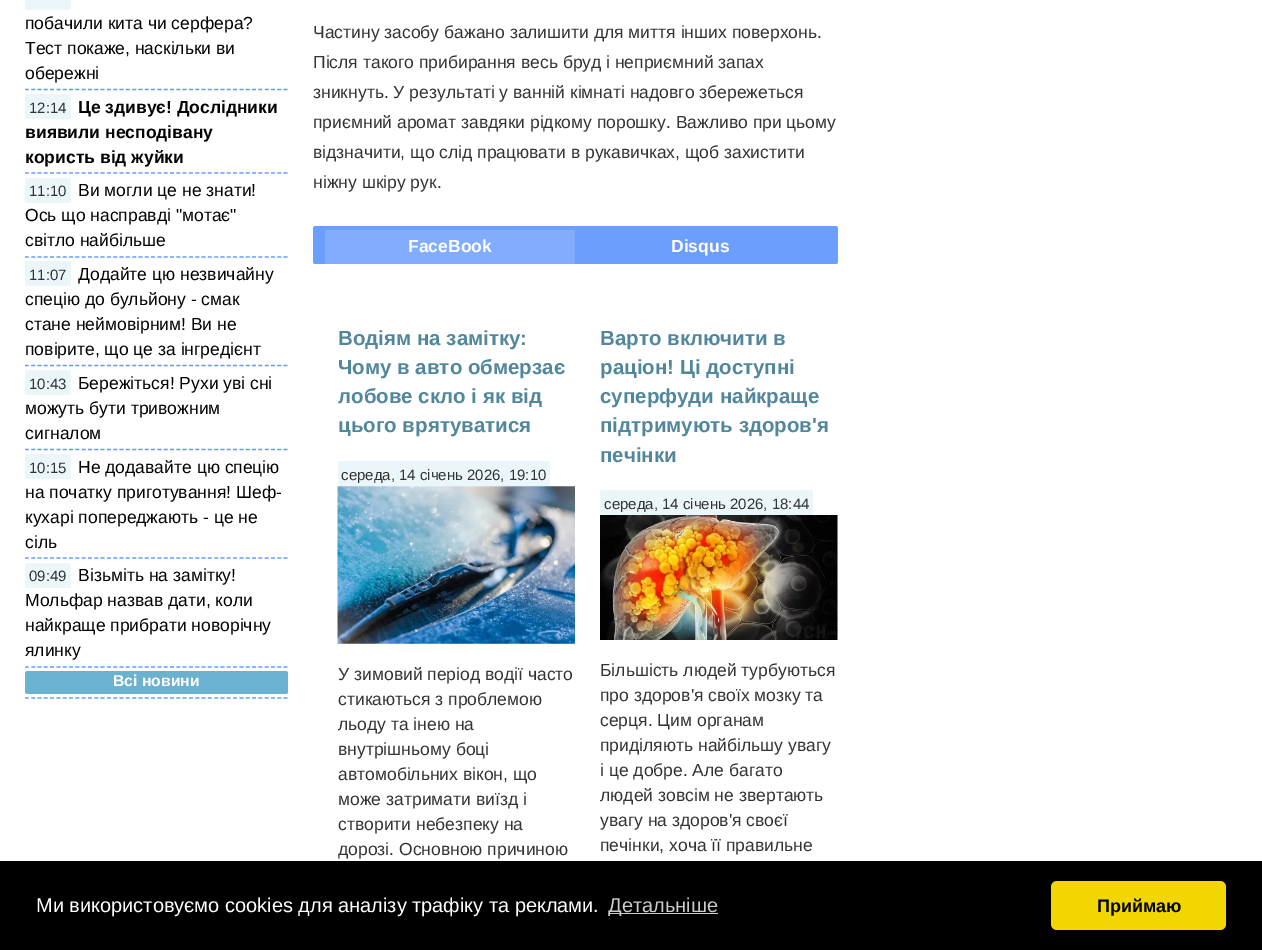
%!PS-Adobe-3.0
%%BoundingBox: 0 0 1262 950
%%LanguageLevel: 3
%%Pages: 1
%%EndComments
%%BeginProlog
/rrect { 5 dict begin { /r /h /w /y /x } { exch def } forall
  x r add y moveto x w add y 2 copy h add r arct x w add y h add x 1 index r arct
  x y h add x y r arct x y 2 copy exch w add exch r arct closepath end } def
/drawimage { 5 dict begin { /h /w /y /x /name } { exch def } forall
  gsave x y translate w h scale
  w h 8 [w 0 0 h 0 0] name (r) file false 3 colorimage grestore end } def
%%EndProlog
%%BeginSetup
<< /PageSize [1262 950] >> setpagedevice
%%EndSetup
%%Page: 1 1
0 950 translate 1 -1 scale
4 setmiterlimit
1 setgray
0 0 1262 950 rectfill
0.396 0.6 0.996 setrgbcolor
1.2 setlinewidth
[3.75 2.56] 0 setdash
newpath 25 89.5 moveto 287.5 89.5 lineto stroke
0.922 0.965 0.984 setrgbcolor
25 -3 46 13 2.5 rrect fill
0.396 0.6 0.996 setrgbcolor
newpath 25 173 moveto 287.5 173 lineto stroke
0.922 0.965 0.984 setrgbcolor
25 94 46 25 2.5 rrect fill
0.396 0.6 0.996 setrgbcolor
newpath 25 257 moveto 287.5 257 lineto stroke
0.922 0.965 0.984 setrgbcolor
25 178 46 25 2.5 rrect fill
0.396 0.6 0.996 setrgbcolor
newpath 25 365.5 moveto 287.5 365.5 lineto stroke
0.922 0.965 0.984 setrgbcolor
25 261 46 25 2.5 rrect fill
0.396 0.6 0.996 setrgbcolor
newpath 25 449.5 moveto 287.5 449.5 lineto stroke
0.922 0.965 0.984 setrgbcolor
25 370 46 25 2.5 rrect fill
0.396 0.6 0.996 setrgbcolor
newpath 25 558 moveto 287.5 558 lineto stroke
0.922 0.965 0.984 setrgbcolor
25 454 46 25 2.5 rrect fill
0.396 0.6 0.996 setrgbcolor
newpath 25 667 moveto 287.5 667 lineto stroke
0.922 0.965 0.984 setrgbcolor
25 563 46 25 2.5 rrect fill
0.396 0.6 0.996 setrgbcolor
newpath 25 698 moveto 287.5 698 lineto stroke
0.416 0.698 0.816 setrgbcolor
25 671 263 23 2.5 rrect fill
0.424 0.62 0.996 setrgbcolor
313 226 525 38 2.5 rrect fill
0.51 0.678 0.996 setrgbcolor
newpath 327.5 230 moveto 572.5 230 lineto 574 230 575 231 575 232.5 curveto 575 264 lineto 325 264 lineto 325 232.5 lineto 325 231 326 230 327.5 230 curveto closepath fill
0.922 0.965 0.984 setrgbcolor
338 461 212 25 2.5 rrect fill
(images/1.raw) 337 486 238 158 drawimage
600 490 213 25 2.5 rrect fill
(images/2.raw) 600 515 238 125 drawimage
0 setgray
0 861 1262 89 rectfill
0.8 setgray
609 913 109 1 rectfill
0.945 0.839 0 setrgbcolor
1051 881 175 49 6 rrect fill
/LiberationSans-Regular [17.5 0 0 -17.5 0 0] selectfont
0.004 setgray
25 29 moveto (побачили кита чи серфера?) show
25 54 moveto (Тест покаже, наскільки ви) show
25 79 moveto (обережні) show
/LiberationSans-Bold [17.5 0 0 -17.5 0 0] selectfont
78 113 moveto (Це здивує! Дослідники) show
25 138 moveto (виявили несподівану) show
25 163 moveto (користь від жуйки) show
/LiberationSans-Regular [15 0 0 -15 0 0] selectfont
0.2 setgray
29 113 moveto (12:14) show
/LiberationSans-Regular [17.5 0 0 -17.5 0 0] selectfont
0.004 setgray
78 196 moveto (Ви могли це не знати!) show
25 221 moveto (Ось що насправді "мотає") show
25 246 moveto (світло найбільше) show
/LiberationSans-Regular [15 0 0 -15 0 0] selectfont
0.2 setgray
29 196 moveto (11:10) show
/LiberationSans-Regular [17.5 0 0 -17.5 0 0] selectfont
0.004 setgray
78 280 moveto (Додайте цю незвичайну) show
25 305 moveto (спецію до бульйону - смак) show
25 330 moveto (стане неймовірним! Ви не) show
25 355 moveto (повірите, що це за інгредієнт) show
/LiberationSans-Regular [15 0 0 -15 0 0] selectfont
0.2 setgray
29 280 moveto (11:07) show
/LiberationSans-Regular [17.5 0 0 -17.5 0 0] selectfont
0.004 setgray
78 389 moveto (Бережіться! Рухи уві сні) show
25 414 moveto (можуть бути тривожним) show
25 439 moveto (сигналом) show
/LiberationSans-Regular [15 0 0 -15 0 0] selectfont
0.2 setgray
29 389 moveto (10:43) show
/LiberationSans-Regular [17.5 0 0 -17.5 0 0] selectfont
0.004 setgray
78 473 moveto (Не додавайте цю спецію) show
25 498 moveto (на початку приготування! Шеф-) show
25 523 moveto (кухарі попереджають - це не) show
25 548 moveto (сіль) show
/LiberationSans-Regular [15 0 0 -15 0 0] selectfont
0.2 setgray
29 473 moveto (10:15) show
/LiberationSans-Regular [17.5 0 0 -17.5 0 0] selectfont
0.004 setgray
78 581 moveto (Візьміть на замітку!) show
25 606 moveto (Мольфар назвав дати, коли) show
25 631 moveto (найкраще прибрати новорічну) show
25 656 moveto (ялинку) show
/LiberationSans-Regular [15 0 0 -15 0 0] selectfont
0.2 setgray
29 581 moveto (09:49) show
/LiberationSans-Bold [15.75 0 0 -15.75 0 0] selectfont
1 setgray
113 686 moveto (Всі новини) show
/LiberationSans-Regular [17.5 0 0 -17.5 0 0] selectfont
0.2 setgray
313 38 moveto (Частину засобу бажано залишити для миття інших поверхонь.) show
313 68 moveto (Після такого прибирання весь бруд і неприємний запах) show
313 98 moveto (зникнуть. У результаті у ванній кімнаті надовго збережеться) show
313 128 moveto (приємний аромат завдяки рідкому порошку. Важливо при цьому) show
313 158 moveto (відзначити, що слід працювати в рукавичках, щоб захистити) show
313 188 moveto (ніжну шкіру рук.) show
/LiberationSans-Bold [17.5 0 0 -17.5 0 0] selectfont
1 setgray
408 252 moveto (FaceBook) show
671 252 moveto (Disqus) show
/LiberationSans-Bold [20.5 0 0 -20.5 0 0] selectfont
0.318 0.529 0.616 setrgbcolor
338 345 moveto (Водіям на замітку:) show
338 374 moveto (Чому в авто обмерзає) show
338 403 moveto (лобове скло і як від) show
338 432 moveto (цього врятуватися) show
/LiberationSans-Regular [15 0 0 -15 0 0] selectfont
0.2 setgray
341 480 moveto (середа, 14 січень 2026, 19:10) show
/LiberationSans-Regular [17.5 0 0 -17.5 0 0] selectfont
338 680 moveto (У зимовий період водії часто) show
338 705 moveto (стикаються з проблемою) show
338 730 moveto (льоду та інею на) show
338 755 moveto (внутрішньому боці) show
338 780 moveto (автомобільних вікон, що) show
338 805 moveto (може затримати виїзд і) show
338 830 moveto (створити небезпеку на) show
338 855 moveto (дорозі. Основною причиною) show
/LiberationSans-Bold [20.5 0 0 -20.5 0 0] selectfont
0.318 0.529 0.616 setrgbcolor
600 345 moveto (Варто включити в) show
600 374 moveto (раціон! Ці доступні) show
600 403 moveto (суперфуди найкраще) show
600 432 moveto (підтримують здоров'я) show
600 462 moveto (печінки) show
/LiberationSans-Regular [15 0 0 -15 0 0] selectfont
0.2 setgray
604 509 moveto (середа, 14 січень 2026, 18:44) show
/LiberationSans-Regular [17.5 0 0 -17.5 0 0] selectfont
600 676 moveto (Більшість людей турбуються) show
600 701 moveto (про здоров'я своїх мозку та) show
600 726 moveto (серця. Цим органам) show
600 751 moveto (приділяють найбільшу увагу) show
600 776 moveto (і це добре. Але багато) show
600 801 moveto (людей зовсім не звертають) show
600 826 moveto (увагу на здоров'я своєї) show
600 851 moveto (печінки, хоча її правильне) show
/LiberationSans-Regular [20 0 0 -20 0 0] selectfont
1 setgray
36 912 moveto (Ми використовуємо cookies для аналізу трафіку та реклами.) show
0.8 setgray
608 912 moveto (Детальніше) show
/LiberationSans-Bold [18 0 0 -18 0 0] selectfont
0.004 setgray
1097 912 moveto (Приймаю) show
showpage
%%EOF
